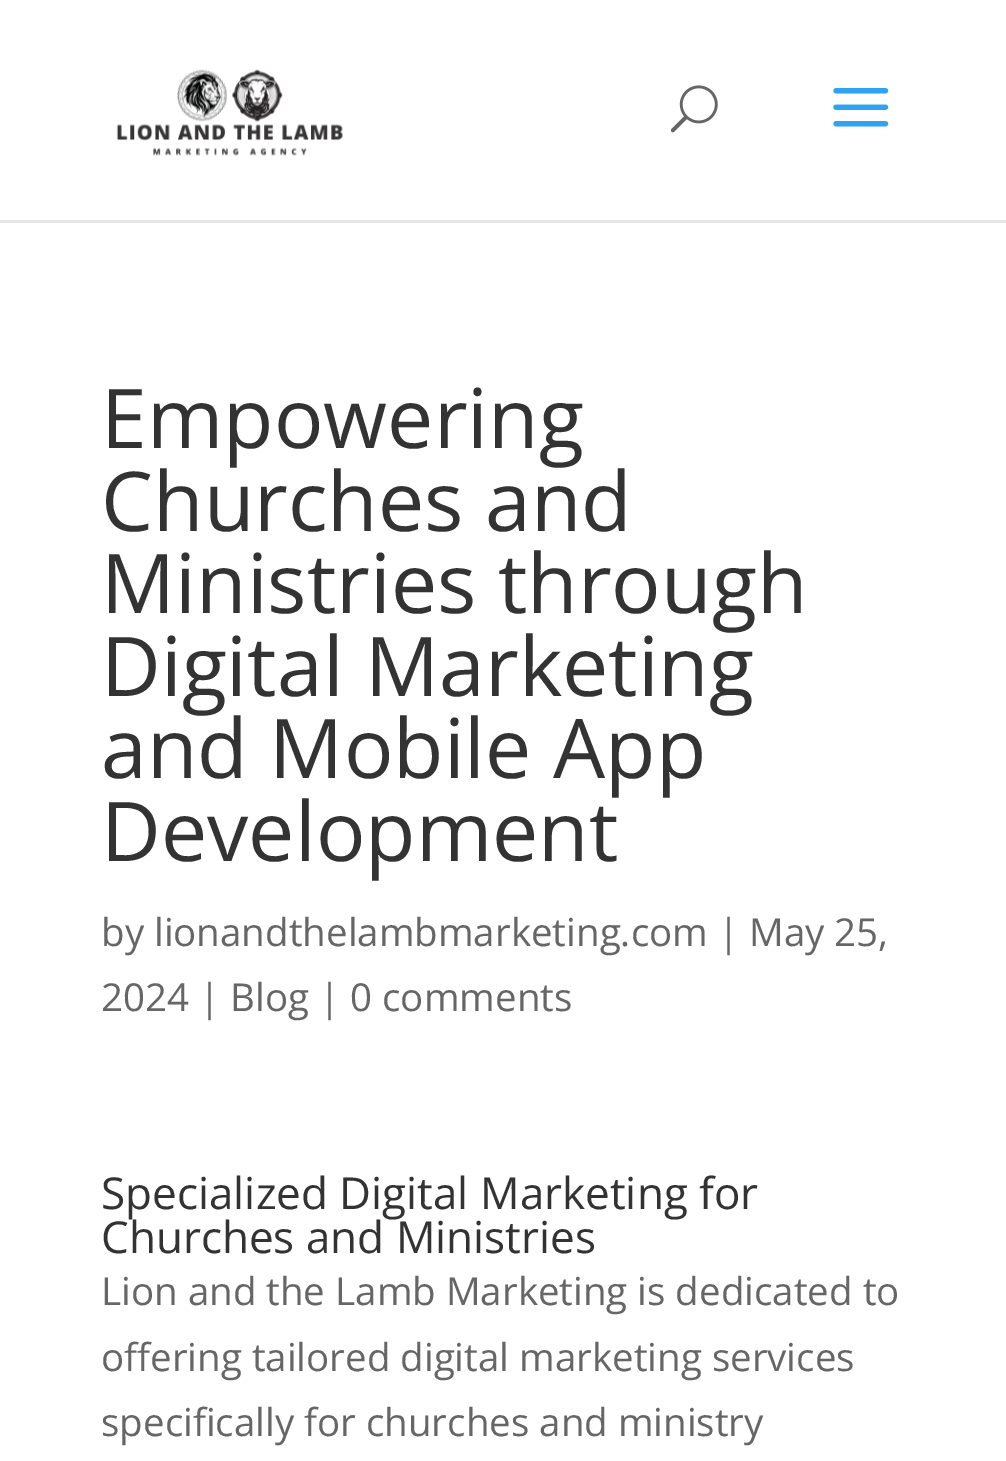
%!PS-Adobe-3.0
%%BoundingBox: 0 0 1006 1461
%%LanguageLevel: 3
%%Pages: 1
%%EndComments
%%BeginProlog
/drawimage { 5 dict begin { /h /w /y /x /name } { exch def } forall
  gsave x y translate w h scale
  w h 8 [w 0 0 h 0 0] name (r) file false 3 colorimage grestore end } def
%%EndProlog
%%BeginSetup
<< /PageSize [1006 1461] >> setpagedevice
%%EndSetup
%%Page: 1 1
0 1461 translate 1 -1 scale
4 setmiterlimit
1 setgray
0 0 1006 1461 rectfill
0.902 setgray
newpath 0 220 moveto 0 223 lineto 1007 223 lineto 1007 3 lineto 1006 3 lineto 1006 220 lineto closepath fill
(images/1.raw) 116 69 227 87 drawimage
(images/2.raw) 670 85 48 48 drawimage
(images/3.raw) 833 88 56 39 drawimage
/OpenSans-Regular [82.5 0 0 -82.5 0 0] selectfont
0.2 setgray
101 448 moveto (Empowering) show
101 531 moveto (Churches and) show
101 613 moveto (Ministries through) show
101 696 moveto (Digital Marketing) show
101 778 moveto (and Mobile App) show
101 861 moveto (Development) show
/OpenSans-Regular [38.5 0 0 -38.5 0 0] selectfont
0.4 setgray
101 946 moveto (by lionandthelambmarketing.com | May 25,) show
101 1011 moveto (2024 | Blog | 0 comments) show
/OpenSans-Regular [44 0 0 -44 0 0] selectfont
0.2 setgray
101 1209 moveto (Specialized Digital Marketing for) show
101 1253 moveto (Churches and Ministries) show
/OpenSans-Regular [38.5 0 0 -38.5 0 0] selectfont
0.4 setgray
101 1305 moveto (Lion and the Lamb Marketing is dedicated to) show
101 1371 moveto (offering tailored digital marketing services) show
101 1436 moveto (specifically for churches and ministry) show
showpage
%%EOF
